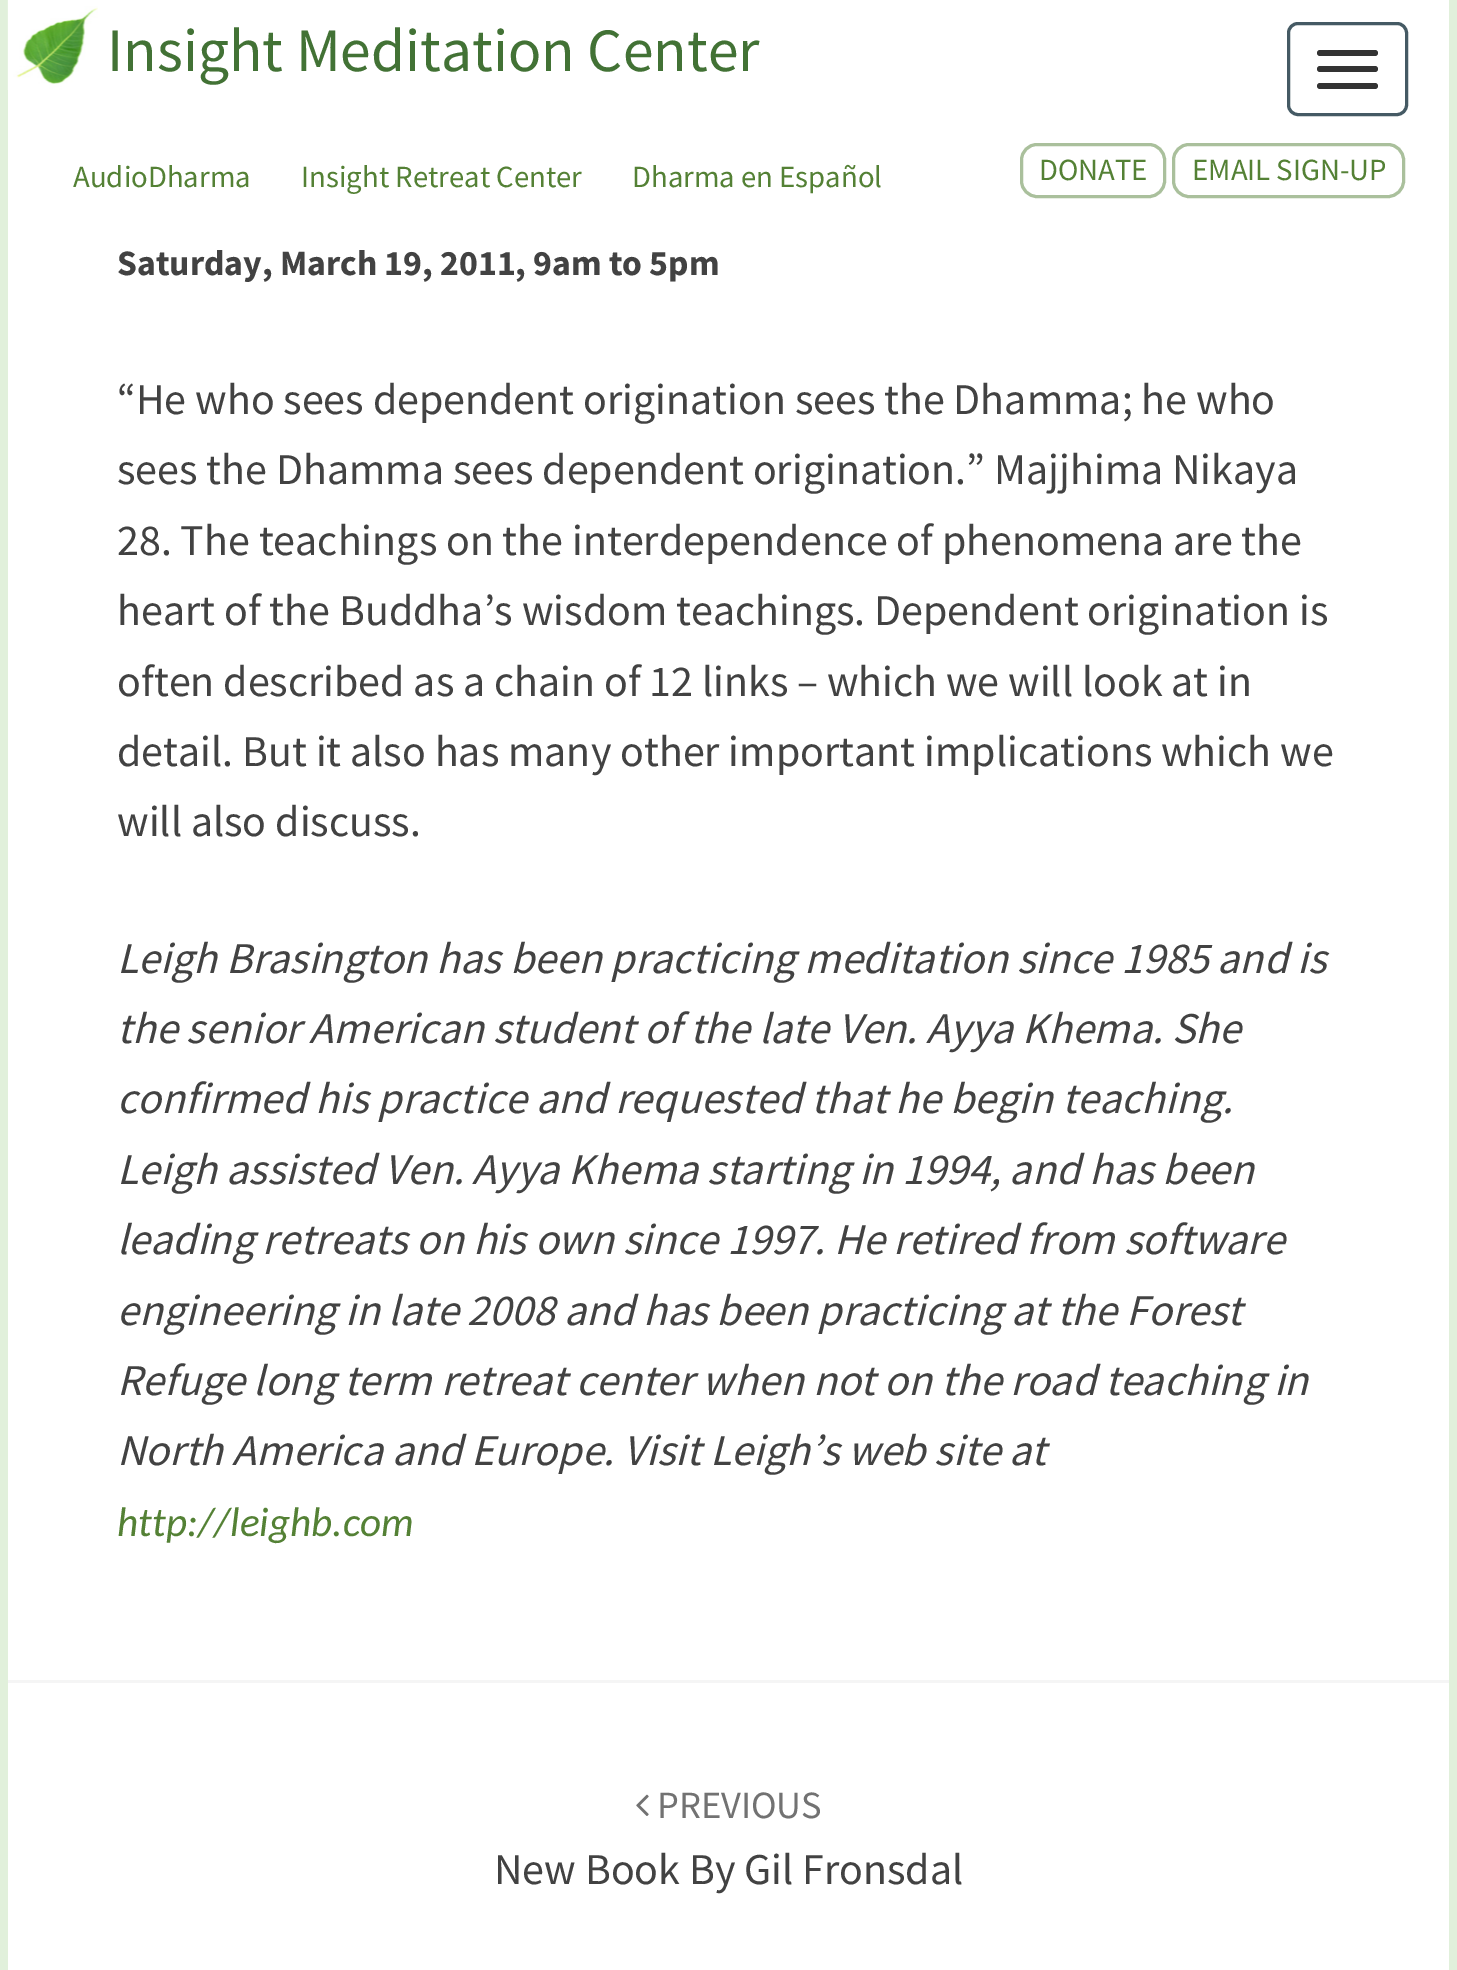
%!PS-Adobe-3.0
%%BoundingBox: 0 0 1457 1970
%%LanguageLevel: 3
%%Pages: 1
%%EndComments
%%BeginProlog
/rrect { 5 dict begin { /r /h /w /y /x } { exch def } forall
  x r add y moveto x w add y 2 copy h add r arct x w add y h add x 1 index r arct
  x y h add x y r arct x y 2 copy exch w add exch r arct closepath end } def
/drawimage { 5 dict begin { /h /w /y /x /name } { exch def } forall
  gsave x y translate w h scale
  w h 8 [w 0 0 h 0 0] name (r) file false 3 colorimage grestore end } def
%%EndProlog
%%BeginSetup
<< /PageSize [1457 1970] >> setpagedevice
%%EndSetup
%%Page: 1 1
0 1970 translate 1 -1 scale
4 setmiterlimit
0.882 0.941 0.859 setrgbcolor
0 0 1457 1970 rectfill
1 setgray
8 0 1441 1970 rectfill
(images/1.raw) 7 0 91 90 drawimage
0.271 0.353 0.392 setrgbcolor
3 setlinewidth
1288.5 23.5 118 91 9.5 rrect stroke
0.2 setgray
1317 50 61 6 3 rrect fill
1317 66 61 6 3 rrect fill
1317 83 61 6 3 rrect fill
0.667 0.753 0.612 setrgbcolor
1021.5 144.5 143 52 15.5 rrect stroke
1173.5 144.5 230 52 15.5 rrect stroke
0.961 setgray
8 1680 1441 3 rectfill
(images/2.raw) 636 1794 13 22 drawimage
/SourceSansPro-Regular [61.6 0 0 -61.6 0 0] selectfont
0.259 0.447 0.208 setrgbcolor
107 71 moveto (Insight Meditation Center) show
/SourceSansPro-Regular [30.75 0 0 -30.75 0 0] selectfont
0.329 0.506 0.208 setrgbcolor
73 187 moveto (AudioDharma) show
301 187 moveto (Insight Retreat Center) show
632 187 moveto (Dharma en Español) show
1039 180 moveto (DONATE) show
1192 180 moveto (EMAIL SIGN-UP) show
/SourceSansPro-Bold [35.75 0 0 -35.75 0 0] selectfont
0.259 setgray
117 275 moveto (Saturday, March 19, 2011, 9am to 5pm) show
/SourceSansPro-Regular [44 0 0 -44 0 0] selectfont
117 414 moveto (“He who sees dependent origination sees the Dhamma; he who) show
117 484 moveto (sees the Dhamma sees dependent origination.” Majjhima Nikaya) show
117 555 moveto (28. The teachings on the interdependence of phenomena are the) show
117 625 moveto (heart of the Buddha’s wisdom teachings. Dependent origination is) show
117 696 moveto (often described as a chain of 12 links – which we will look at in) show
117 766 moveto (detail. But it also has many other important implications which we) show
117 836 moveto (will also discuss.) show
/SourceSansPro-Italic [44 0 0 -44 0 0] selectfont
117 973 moveto (Leigh Brasington has been practicing meditation since 1985 and is) show
117 1043 moveto (the senior American student of the late Ven. Ayya Khema. She) show
117 1113 moveto (confirmed his practice and requested that he begin teaching.) show
117 1184 moveto (Leigh assisted Ven. Ayya Khema starting in 1994, and has been) show
117 1254 moveto (leading retreats on his own since 1997. He retired from software) show
117 1325 moveto (engineering in late 2008 and has been practicing at the Forest) show
117 1395 moveto (Refuge long term retreat center when not on the road teaching in) show
117 1465 moveto (North America and Europe. Visit Leigh’s web site at) show
/Carlito-Italic [41.25 0 0 -41.25 0 0] selectfont
0.329 0.506 0.208 setrgbcolor
117 1536 moveto (http://leighb.com) show
/SourceSansPro-Regular [38.5 0 0 -38.5 0 0] selectfont
0.447 setgray
657 1818 moveto (PREVIOUS) show
/SourceSansPro-Regular [44 0 0 -44 0 0] selectfont
0.259 setgray
494 1884 moveto (New Book By Gil Fronsdal) show
showpage
%%EOF
